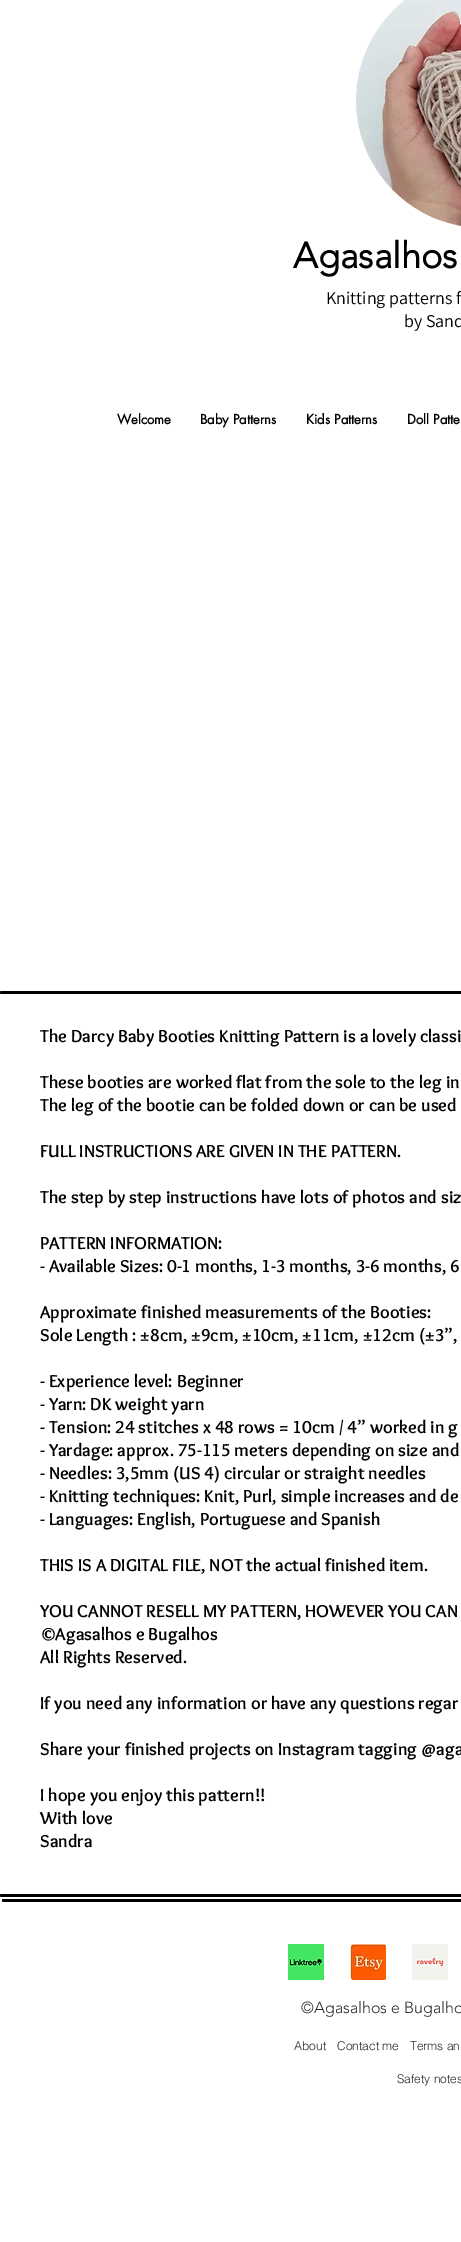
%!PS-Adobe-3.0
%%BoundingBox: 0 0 461 2242
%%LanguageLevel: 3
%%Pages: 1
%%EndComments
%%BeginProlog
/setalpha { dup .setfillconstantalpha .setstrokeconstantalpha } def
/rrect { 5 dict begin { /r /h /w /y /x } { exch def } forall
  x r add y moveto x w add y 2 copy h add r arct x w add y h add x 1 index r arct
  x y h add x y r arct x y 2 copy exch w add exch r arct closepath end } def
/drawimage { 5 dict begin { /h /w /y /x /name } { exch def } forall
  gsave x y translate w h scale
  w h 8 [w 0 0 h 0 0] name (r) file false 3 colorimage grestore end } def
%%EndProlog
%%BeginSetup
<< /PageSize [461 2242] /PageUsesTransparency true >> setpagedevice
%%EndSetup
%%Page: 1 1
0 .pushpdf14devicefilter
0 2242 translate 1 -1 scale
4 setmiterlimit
1 setgray
0 0 461 2242 rectfill
(images/1.raw) 356 0 105 226 drawimage
0 setgray
0 991 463 3 1.5 rrect fill
0.25 setalpha
newpath 2 992 moveto 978 992 lineto 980 993 lineto 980 992 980 991 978 991 curveto 2 991 lineto 0 991 0 993 1 994 curveto 0 993 1 992 2 992 curveto closepath fill
1 setalpha
0 1894 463 3 1.5 rrect fill
0.25 setalpha
newpath 2 1895 moveto 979 1895 lineto 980 1896 lineto 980 1895 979 1894 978 1894 curveto 2 1894 lineto 0 1894 0 1896 1 1897 curveto 0 1896 1 1895 2 1895 curveto closepath fill
1 setalpha
2 1899 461 3 1.5 rrect fill
0.25 setalpha
newpath 4 1900 moveto 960 1900 lineto 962 1901 lineto 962 1900 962 1899 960 1899 curveto 4 1899 lineto 2 1899 2 1901 3 1902 curveto 2 1901 3 1900 4 1900 curveto closepath fill
1 setalpha
(images/2.raw) 288 1944 36 36 drawimage
(images/3.raw) 350 1944 36 36 drawimage
(images/4.raw) 412 1944 36 36 drawimage
/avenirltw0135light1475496-Bold [36 0 0 -36 0 0] selectfont
293 268 moveto (Agasalhos) show
/Assistant-Regular [18 0 0 -18 0 0] selectfont
326 304 moveto (Knitting patterns f) show
404 327 moveto (by Sand) show
/futura-Bold [13 0 0 -13 0 0] selectfont
117 424 moveto (Welcome) show
200 424 moveto (Baby Patterns) show
306 424 moveto (Kids Patterns) show
407 424 moveto (Doll Patte) show
/Overlock-Bold [18 0 0 -18 0 0] selectfont
40 1042 moveto (The Darcy Baby Booties Knitting Pattern is a lovely classi) show
40 1088 moveto (These booties are worked flat from the sole to the leg in) show
40 1111 moveto (The leg of the bootie can be folded down or can be used) show
40 1157 moveto (FULL INSTRUCTIONS ARE GIVEN IN THE PATTERN.) show
40 1203 moveto (The step by step instructions have lots of photos and siz) show
40 1249 moveto (PATTERN INFORMATION:) show
40 1272 moveto (- Available Sizes: 0-1 months, 1-3 months, 3-6 months, 6) show
40 1318 moveto (Approximate finished measurements of the Booties:) show
40 1341 moveto (Sole Length : ±8cm, ±9cm, ±10cm, ±11cm, ±12cm \(±3”,) show
40 1387 moveto (- Experience level: Beginner) show
40 1410 moveto (- Yarn: DK weight yarn) show
40 1433 moveto (- Tension: 24 stitches x 48 rows = 10cm / 4” worked in g) show
40 1456 moveto (- Yardage: approx. 75-115 meters depending on size and) show
40 1479 moveto (- Needles: 3,5mm \(US 4\) circular or straight needles) show
40 1502 moveto (- Knitting techniques: Knit, Purl, simple increases and de) show
40 1525 moveto (- Languages: English, Portuguese and Spanish) show
40 1571 moveto (THIS IS A DIGITAL FILE, NOT the actual finished item.) show
40 1617 moveto (YOU CANNOT RESELL MY PATTERN, HOWEVER YOU CAN) show
40 1640 moveto (©Agasalhos e Bugalhos) show
40 1663 moveto (All Rights Reserved.) show
40 1709 moveto (If you need any information or have any questions regar) show
40 1755 moveto (Share your finished projects on Instagram tagging @aga) show
40 1801 moveto (I hope you enjoy this pattern!!) show
40 1824 moveto (With love) show
40 1847 moveto (Sandra) show
/avenirltw0135light1475496-Light [16 0 0 -16 0 0] selectfont
0.184 0.18 0.18 setrgbcolor
301 2013 moveto (©Agasalhos e Bugalho) show
/helvetica-Light [12 0 0 -12 0 0] selectfont
0.157 0.149 0.149 setrgbcolor
294 2050 moveto (About) show
337 2050 moveto (Contact me) show
410 2050 moveto (Terms an) show
397 2083 moveto (Safety notes) show
.poppdf14devicefilter showpage
%%EOF
